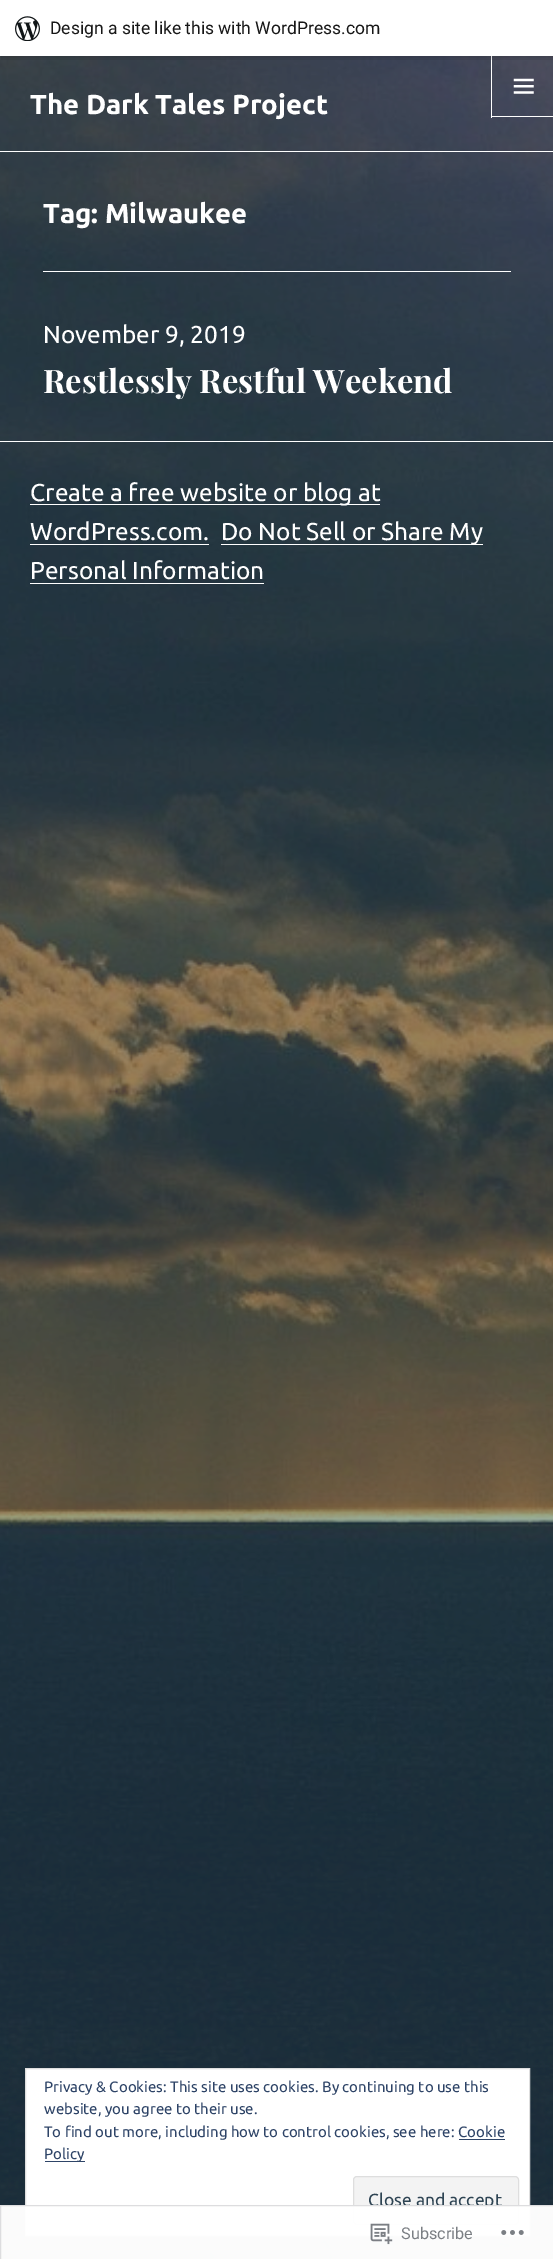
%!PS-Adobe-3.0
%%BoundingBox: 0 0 553 2259
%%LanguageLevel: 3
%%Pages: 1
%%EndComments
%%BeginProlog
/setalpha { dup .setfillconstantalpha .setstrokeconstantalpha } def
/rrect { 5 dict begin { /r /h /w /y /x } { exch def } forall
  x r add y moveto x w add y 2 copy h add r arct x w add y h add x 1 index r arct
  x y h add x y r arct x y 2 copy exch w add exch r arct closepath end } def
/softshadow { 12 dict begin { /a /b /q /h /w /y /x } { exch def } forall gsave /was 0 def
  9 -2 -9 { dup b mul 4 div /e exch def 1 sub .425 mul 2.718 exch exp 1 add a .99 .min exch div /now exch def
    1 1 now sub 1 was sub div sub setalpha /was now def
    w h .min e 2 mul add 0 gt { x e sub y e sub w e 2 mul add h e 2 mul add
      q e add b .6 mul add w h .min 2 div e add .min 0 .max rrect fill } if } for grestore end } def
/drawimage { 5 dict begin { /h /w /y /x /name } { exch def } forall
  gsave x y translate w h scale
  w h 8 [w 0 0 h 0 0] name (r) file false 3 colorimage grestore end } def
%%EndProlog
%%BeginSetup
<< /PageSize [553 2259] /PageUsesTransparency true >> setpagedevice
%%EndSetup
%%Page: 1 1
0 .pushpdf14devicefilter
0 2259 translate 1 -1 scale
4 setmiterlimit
1 setgray
0 0 553 2259 rectfill
(images/2.raw) 0 56 553 2203 drawimage
491 116 62 1 rectfill
491 55 1 63 rectfill
0 setgray
0 1 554 57 0 1 0.05 softshadow
0.08 setalpha
newpath 1 56 moveto 1 60 lineto 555 60 lineto 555 4 lineto 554 4 lineto 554 56 lineto closepath fill
1 setalpha
1 setgray
0 0 553 56 rectfill
(images/1.raw) 15 16 25 25 drawimage
0 151 553 1 rectfill
(images/3.raw) 513 78 21 16 drawimage
43 271 468 1 rectfill
0 441 553 1 rectfill
30 504 350 1 rectfill
30 544 179 1 rectfill
221 544 262 1 rectfill
30 583 234 1 rectfill
newpath 25.5 2068.5 moveto 529.5 2068.5 lineto 529.5 2235.5 lineto 25.5 2235.5 lineto closepath gsave fill grestore
0.871 setgray
stroke
0.18 0.267 0.404 setrgbcolor
459 2139 46 1 rectfill
45 2161 40 1 rectfill
0.953 setgray
353.5 2176.5 165 48 3.5 rrect gsave fill grestore
0.871 setgray
stroke
/Roboto-Regular [17.5 0 0 -17.5 0 0] selectfont
0.09 setgray
50 34 moveto (Design a site like this with WordPress.com) show
/Ubuntu-Bold [27.5 0 0 -27.5 0 0] selectfont
1 setgray
30 114 moveto (The Dark Tales Project) show
43 223 moveto (Tag: Milwaukee) show
/Ubuntu-Regular [24.4 0 0 -24.4 0 0] selectfont
43 343 moveto (November 9, 2019) show
/PlayfairDisplay-Bold [32.5 0 0 -32.5 0 0] selectfont
43 393 moveto (Restlessly Restful Weekend) show
/Ubuntu-Regular [24.4 0 0 -24.4 0 0] selectfont
30 501 moveto (Create a free website or blog at) show
30 540 moveto (WordPress.com.) show
221 540 moveto (Do Not Sell or Share My) show
30 579 moveto (Personal Information) show
/Ubuntu-Regular [15 0 0 -15 0 0] selectfont
0.18 0.267 0.404 setrgbcolor
44 2092 moveto (Privacy & Cookies: This site uses cookies. By continuing to use this) show
44 2114 moveto (website, you agree to their use.) show
44 2137 moveto (To find out more, including how to control cookies, see here: Cookie) show
44 2159 moveto (Policy) show
/Ubuntu-Regular [17.5 0 0 -17.5 0 0] selectfont
0.18 0.267 0.325 setrgbcolor
368 2206 moveto (Close and accept) show
0.98 setalpha
1 setgray
0 2205 553 54 rectfill
0.863 0.863 0.871 setrgbcolor
0.5 2205.5 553 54 rectstroke
1 setalpha
(images/4.raw) 370 2223 23 22 drawimage
/Roboto-Regular [16.25 0 0 -16.25 0 0] selectfont
0.482 0.498 0.518 setrgbcolor
401 2239 moveto (Subscribe) show
(images/5.raw) 501 2230 23 5 drawimage
.poppdf14devicefilter showpage
%%EOF
